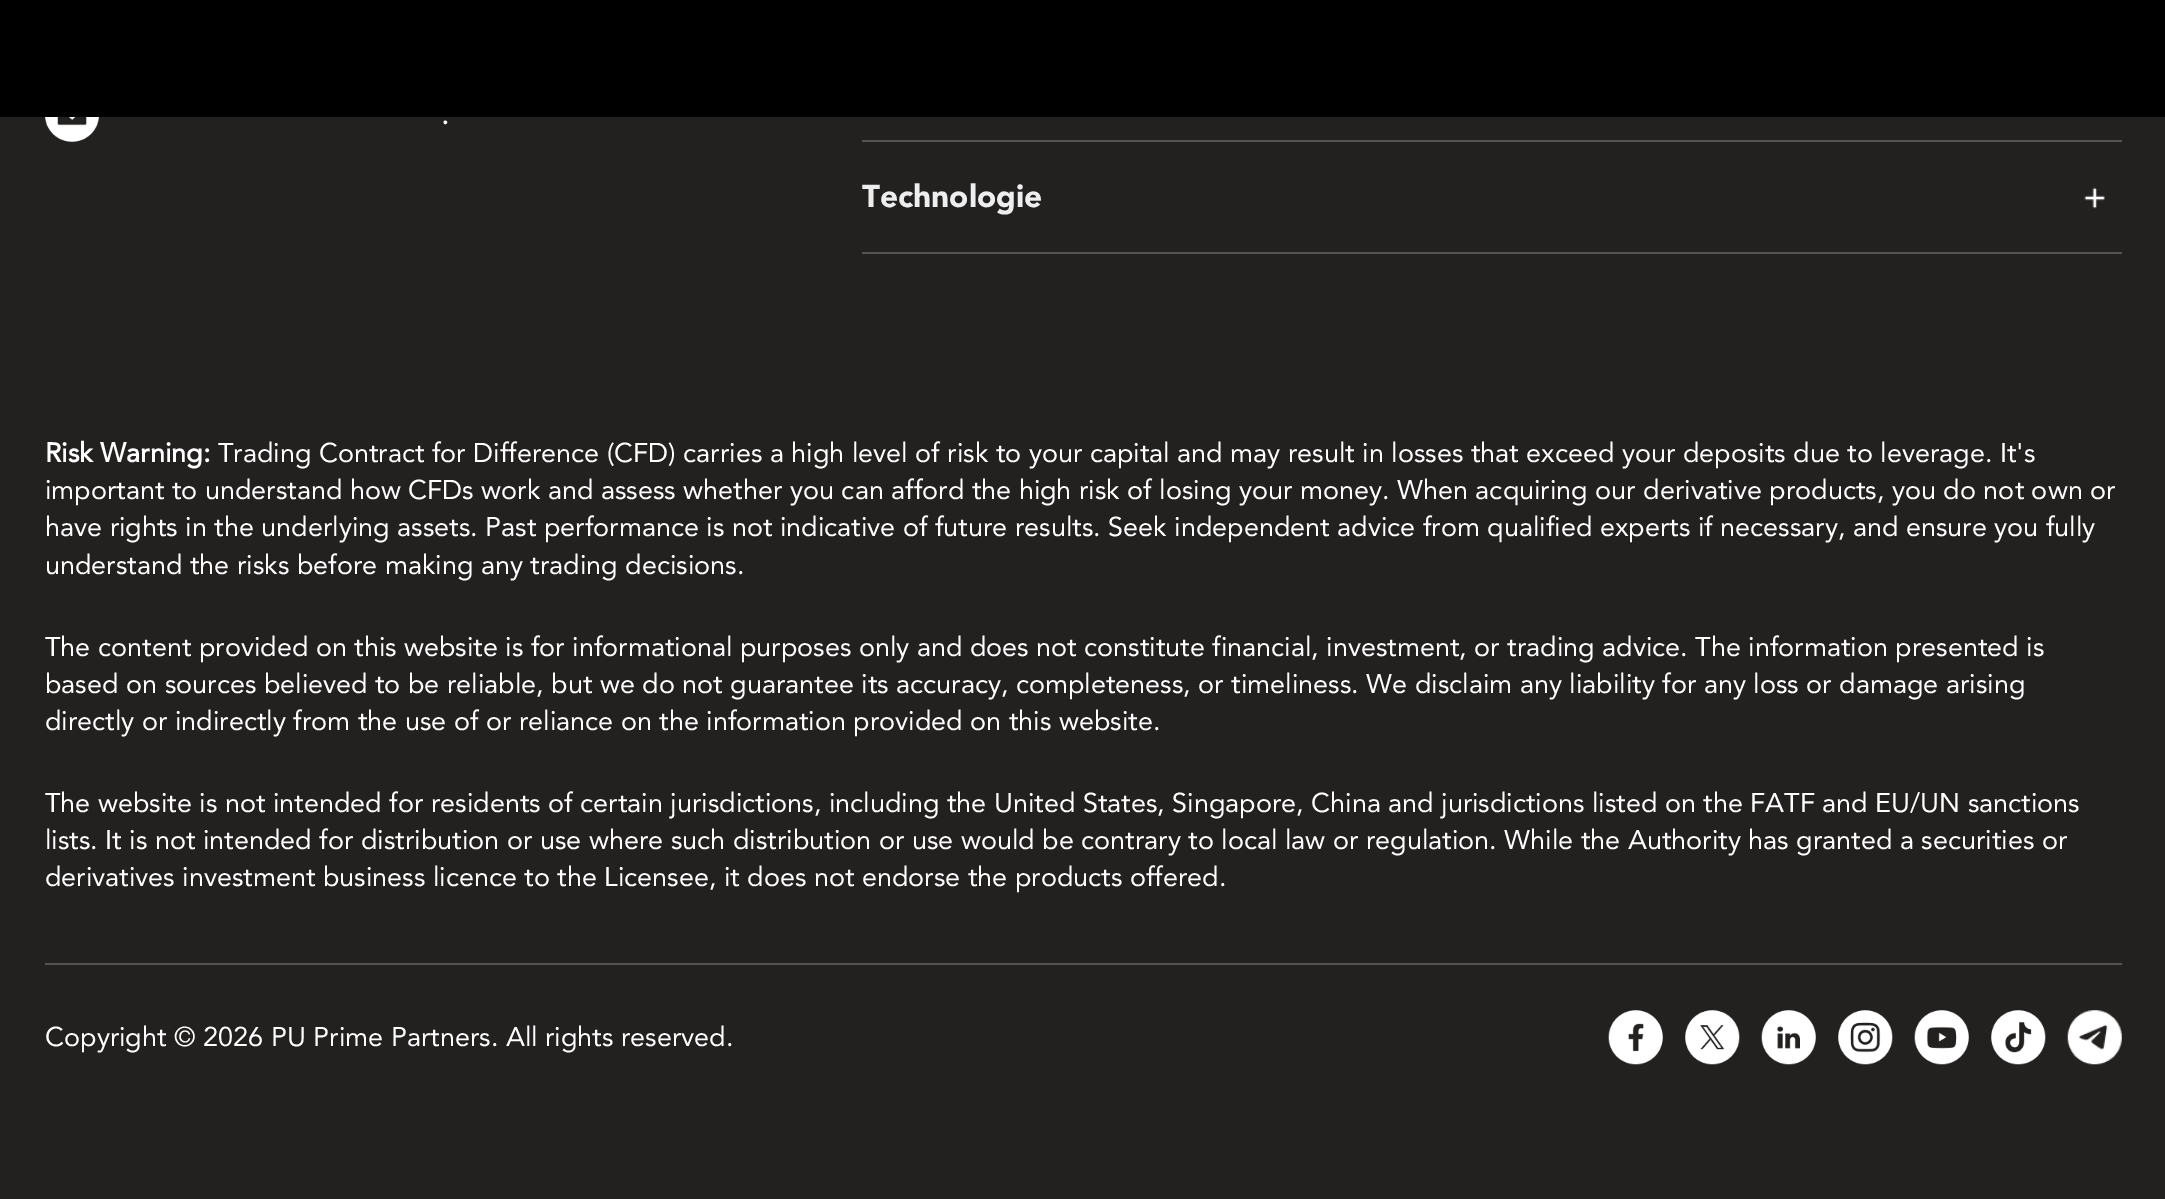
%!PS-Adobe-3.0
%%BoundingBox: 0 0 2165 1199
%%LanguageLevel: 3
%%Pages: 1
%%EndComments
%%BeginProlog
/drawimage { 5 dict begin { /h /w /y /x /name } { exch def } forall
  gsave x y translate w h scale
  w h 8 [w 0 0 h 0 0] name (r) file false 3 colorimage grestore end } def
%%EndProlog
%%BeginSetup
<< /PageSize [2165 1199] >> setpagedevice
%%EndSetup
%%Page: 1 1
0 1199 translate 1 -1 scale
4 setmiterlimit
0.137 0.125 0.125 setrgbcolor
0 0 2165 1199 rectfill
0 setgray
0 0 2165 117 rectfill
(images/1.raw) 45 117 54 25 drawimage
0.337 0.325 0.325 setrgbcolor
862 140 1260 2 rectfill
862 252 1260 2 rectfill
(images/2.raw) 2084 187 21 22 drawimage
45 963 2077 2 rectfill
(images/3.raw) 1608 1010 55 55 drawimage
(images/4.raw) 1685 1010 55 55 drawimage
(images/5.raw) 1761 1010 55 55 drawimage
(images/6.raw) 1838 1010 55 55 drawimage
(images/7.raw) 1914 1010 55 55 drawimage
(images/8.raw) 1991 1010 55 55 drawimage
(images/9.raw) 2067 1010 55 55 drawimage
/Avenir-Regular [31.5 0 0 -31.5 0 0] selectfont
1 setgray
441 124 moveto (.) show
/Avenir-Black [31.5 0 0 -31.5 0 0] selectfont
0.933 setgray
862 207 moveto (Technologie) show
/Avenir-Bold [27 0 0 -27 0 0] selectfont
1 setgray
45 462 moveto (Risk Warning:) show
/Avenir-Regular [27 0 0 -27 0 0] selectfont
218 462 moveto (Trading Contract for Difference \(CFD\) carries a high level of risk to your capital and may result in losses that exceed your deposits due to leverage. It's) show
45 499 moveto (important to understand how CFDs work and assess whether you can afford the high risk of losing your money. When acquiring our derivative products, you do not own or) show
45 536 moveto (have rights in the underlying assets. Past performance is not indicative of future results. Seek independent advice from qualified experts if necessary, and ensure you fully) show
45 574 moveto (understand the risks before making any trading decisions.) show
45 656 moveto (The content provided on this website is for informational purposes only and does not constitute financial, investment, or trading advice. The information presented is) show
45 693 moveto (based on sources believed to be reliable, but we do not guarantee its accuracy, completeness, or timeliness. We disclaim any liability for any loss or damage arising) show
45 730 moveto (directly or indirectly from the use of or reliance on the information provided on this website.) show
45 812 moveto (The website is not intended for residents of certain jurisdictions, including the United States, Singapore, China and jurisdictions listed on the FATF and EU/UN sanctions) show
45 849 moveto (lists. It is not intended for distribution or use where such distribution or use would be contrary to local law or regulation. While the Authority has granted a securities or) show
45 886 moveto (derivatives investment business licence to the Licensee, it does not endorse the products offered.) show
45 1046 moveto (Copyright © 2026 PU Prime Partners. All rights reserved.) show
showpage
%%EOF
